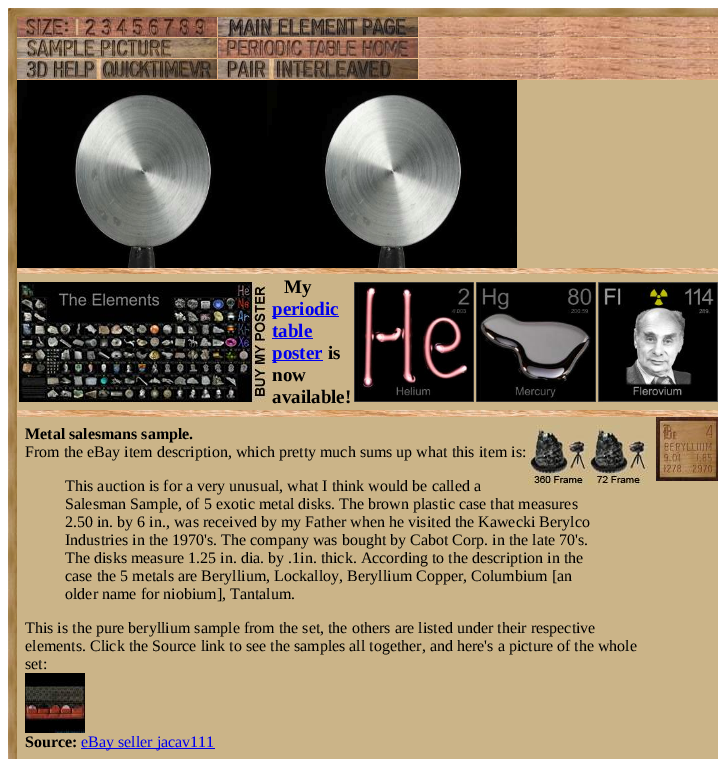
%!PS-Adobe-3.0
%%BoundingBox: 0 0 718 759
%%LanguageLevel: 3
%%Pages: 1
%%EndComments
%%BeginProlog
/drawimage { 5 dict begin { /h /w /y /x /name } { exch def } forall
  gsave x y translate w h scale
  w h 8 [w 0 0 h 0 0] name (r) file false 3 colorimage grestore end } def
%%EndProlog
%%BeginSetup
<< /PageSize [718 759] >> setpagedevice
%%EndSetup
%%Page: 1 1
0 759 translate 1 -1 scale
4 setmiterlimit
1 setgray
0 0 718 759 rectfill
(images/1.raw) 8 8 9 9 drawimage
(images/2.raw) 17 8 701 9 drawimage
(images/3.raw) 8 17 9 742 drawimage
0.796 0.706 0.533 setrgbcolor
17 80 701 679 rectfill
(images/4.raw) 17 17 200 20 drawimage
(images/5.raw) 217 17 1 20 drawimage
(images/6.raw) 218 17 200 20 drawimage
(images/5.raw) 418 17 1 20 drawimage
(images/7.raw) 419 17 299 20 drawimage
(images/8.raw) 17 37 701 1 drawimage
(images/9.raw) 17 38 200 20 drawimage
(images/5.raw) 217 38 1 20 drawimage
(images/10.raw) 218 38 200 20 drawimage
(images/5.raw) 418 38 1 20 drawimage
(images/7.raw) 419 38 299 20 drawimage
(images/8.raw) 17 58 701 1 drawimage
(images/11.raw) 17 59 200 20 drawimage
(images/5.raw) 217 59 1 20 drawimage
(images/12.raw) 218 59 200 20 drawimage
(images/5.raw) 418 59 1 20 drawimage
(images/7.raw) 419 59 299 20 drawimage
(images/8.raw) 17 79 701 1 drawimage
(images/13.raw) 17 80 250 188 drawimage
(images/14.raw) 267 80 250 188 drawimage
(images/15.raw) 17 268 701 6 drawimage
(images/16.raw) 19 282 251 120 drawimage
0 0 0.933 setrgbcolor
272 316 67 1 rectfill
272 338 41 1 rectfill
272 360 51 1 rectfill
(images/17.raw) 354 282 120 120 drawimage
(images/18.raw) 476 282 120 120 drawimage
(images/19.raw) 598 282 120 120 drawimage
(images/15.raw) 17 410 701 6 drawimage
(images/8.raw) 17 416 701 1 drawimage
(images/20.raw) 528 425 60 60 drawimage
(images/21.raw) 588 425 60 60 drawimage
(images/22.raw) 25 673 60 60 drawimage
81 748 134 1 rectfill
(images/23.raw) 656 417 62 64 drawimage
/LiberationSerif-Bold [19 0 0 -19 0 0] selectfont
0 setgray
284 293 moveto (My) show
0 0 0.933 setrgbcolor
272 315 moveto (periodic) show
272 337 moveto (table) show
272 359 moveto (poster) show
0 setgray
328 359 moveto (is) show
272 381 moveto (now) show
272 403 moveto (available!) show
/LiberationSerif-Bold [16 0 0 -16 0 0] selectfont
25 439 moveto (Metal salesmans sample.) show
/LiberationSerif-Regular [16 0 0 -16 0 0] selectfont
25 457 moveto (From the eBay item description, which pretty much sums up what this item is:) show
65 491 moveto (This auction is for a very unusual, what I think would be called a) show
65 509 moveto (Salesman Sample, of 5 exotic metal disks. The brown plastic case that measures) show
65 527 moveto (2.50 in. by 6 in., was received by my Father when he visited the Kawecki Berylco) show
65 545 moveto (Industries in the 1970's. The company was bought by Cabot Corp. in the late 70's.) show
65 563 moveto (The disks measure 1.25 in. dia. by .1in. thick. According to the description in the) show
65 581 moveto (case the 5 metals are Beryllium, Lockalloy, Beryllium Copper, Columbium [an) show
65 599 moveto (older name for niobium], Tantalum.) show
25 633 moveto (This is the pure beryllium sample from the set, the others are listed under their respective) show
25 651 moveto (elements. Click the Source link to see the samples all together, and here's a picture of the whole) show
25 669 moveto (set:) show
/LiberationSerif-Bold [16 0 0 -16 0 0] selectfont
25 747 moveto (Source:) show
/LiberationSerif-Regular [16 0 0 -16 0 0] selectfont
0 0 0.933 setrgbcolor
81 747 moveto (eBay seller jacav111) show
showpage
%%EOF
